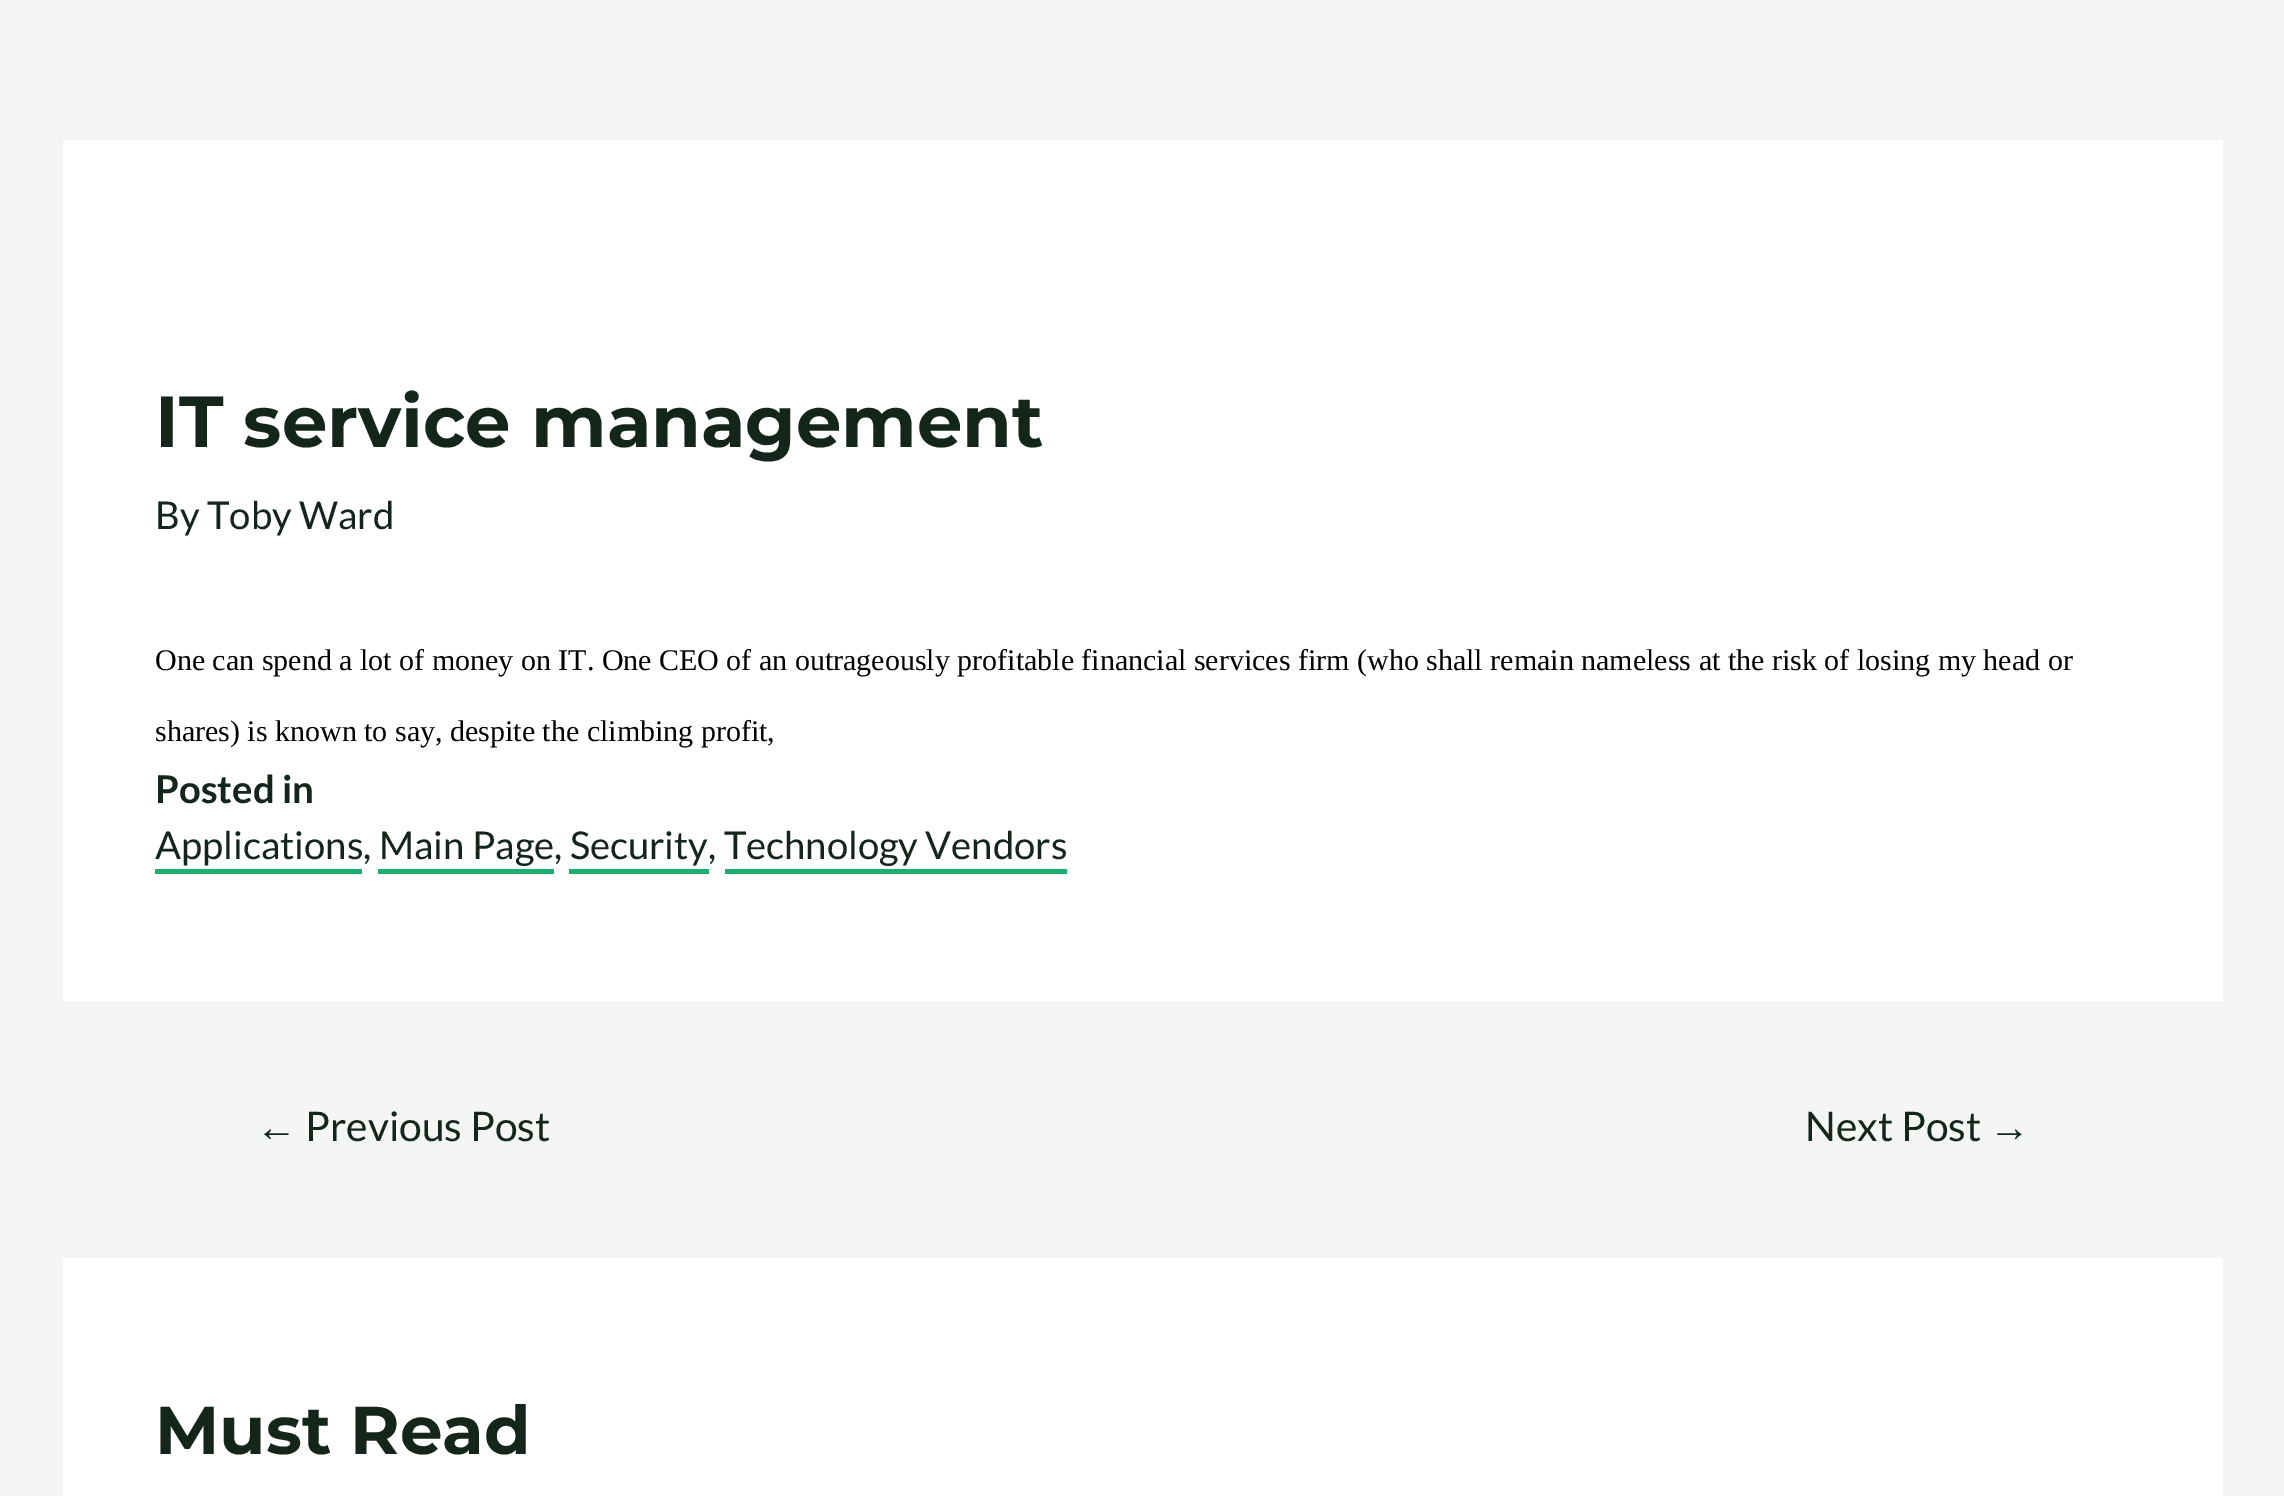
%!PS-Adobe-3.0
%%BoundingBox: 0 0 2284 1496
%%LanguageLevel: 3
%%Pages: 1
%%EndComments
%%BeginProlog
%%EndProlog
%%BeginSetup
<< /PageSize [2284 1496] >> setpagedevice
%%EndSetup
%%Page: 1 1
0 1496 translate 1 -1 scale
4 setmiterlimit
0.957 0.965 0.957 setrgbcolor
0 0 2284 1496 rectfill
1 setgray
63 140 2160 861 rectfill
0.106 0.682 0.439 setrgbcolor
155 869 207 5 rectfill
378 869 176 5 rectfill
569 869 140 5 rectfill
725 869 342 5 rectfill
1 setgray
63 1258 2160 238 rectfill
/Montserrat-Thin [72 0 0 -72 0 0] selectfont
0.078 0.149 0.11 setrgbcolor
155 447 moveto (IT service management) show
/Lato-Regular [38.25 0 0 -38.25 0 0] selectfont
155 529 moveto (By Toby Ward) show
/LiberationSerif-Regular [30 0 0 -30 0 0] selectfont
0 setgray
155 670 moveto (One can spend a lot of money on IT. One CEO of an outrageously profitable financial services firm \(who shall remain nameless at the risk of losing my head or) show
155 741 moveto (shares\) is known to say, despite the climbing profit,) show
/Lato-Bold [38.25 0 0 -38.25 0 0] selectfont
0.078 0.149 0.11 setrgbcolor
155 803 moveto (Posted in) show
/Lato-Regular [38.25 0 0 -38.25 0 0] selectfont
155 859 moveto (Applications, Main Page, Security, Technology Vendors) show
/LiberationSans-Regular [40.75 0 0 -40.75 0 0] selectfont
256 1141 moveto (←) show
/Lato-Regular [40.75 0 0 -40.75 0 0] selectfont
305 1141 moveto (Previous Post) show
1805 1141 moveto (Next Post) show
/LiberationSans-Regular [40.75 0 0 -40.75 0 0] selectfont
1989 1141 moveto (→) show
/Montserrat-Thin [67.5 0 0 -67.5 0 0] selectfont
155 1454 moveto (Must Read) show
showpage
%%EOF
